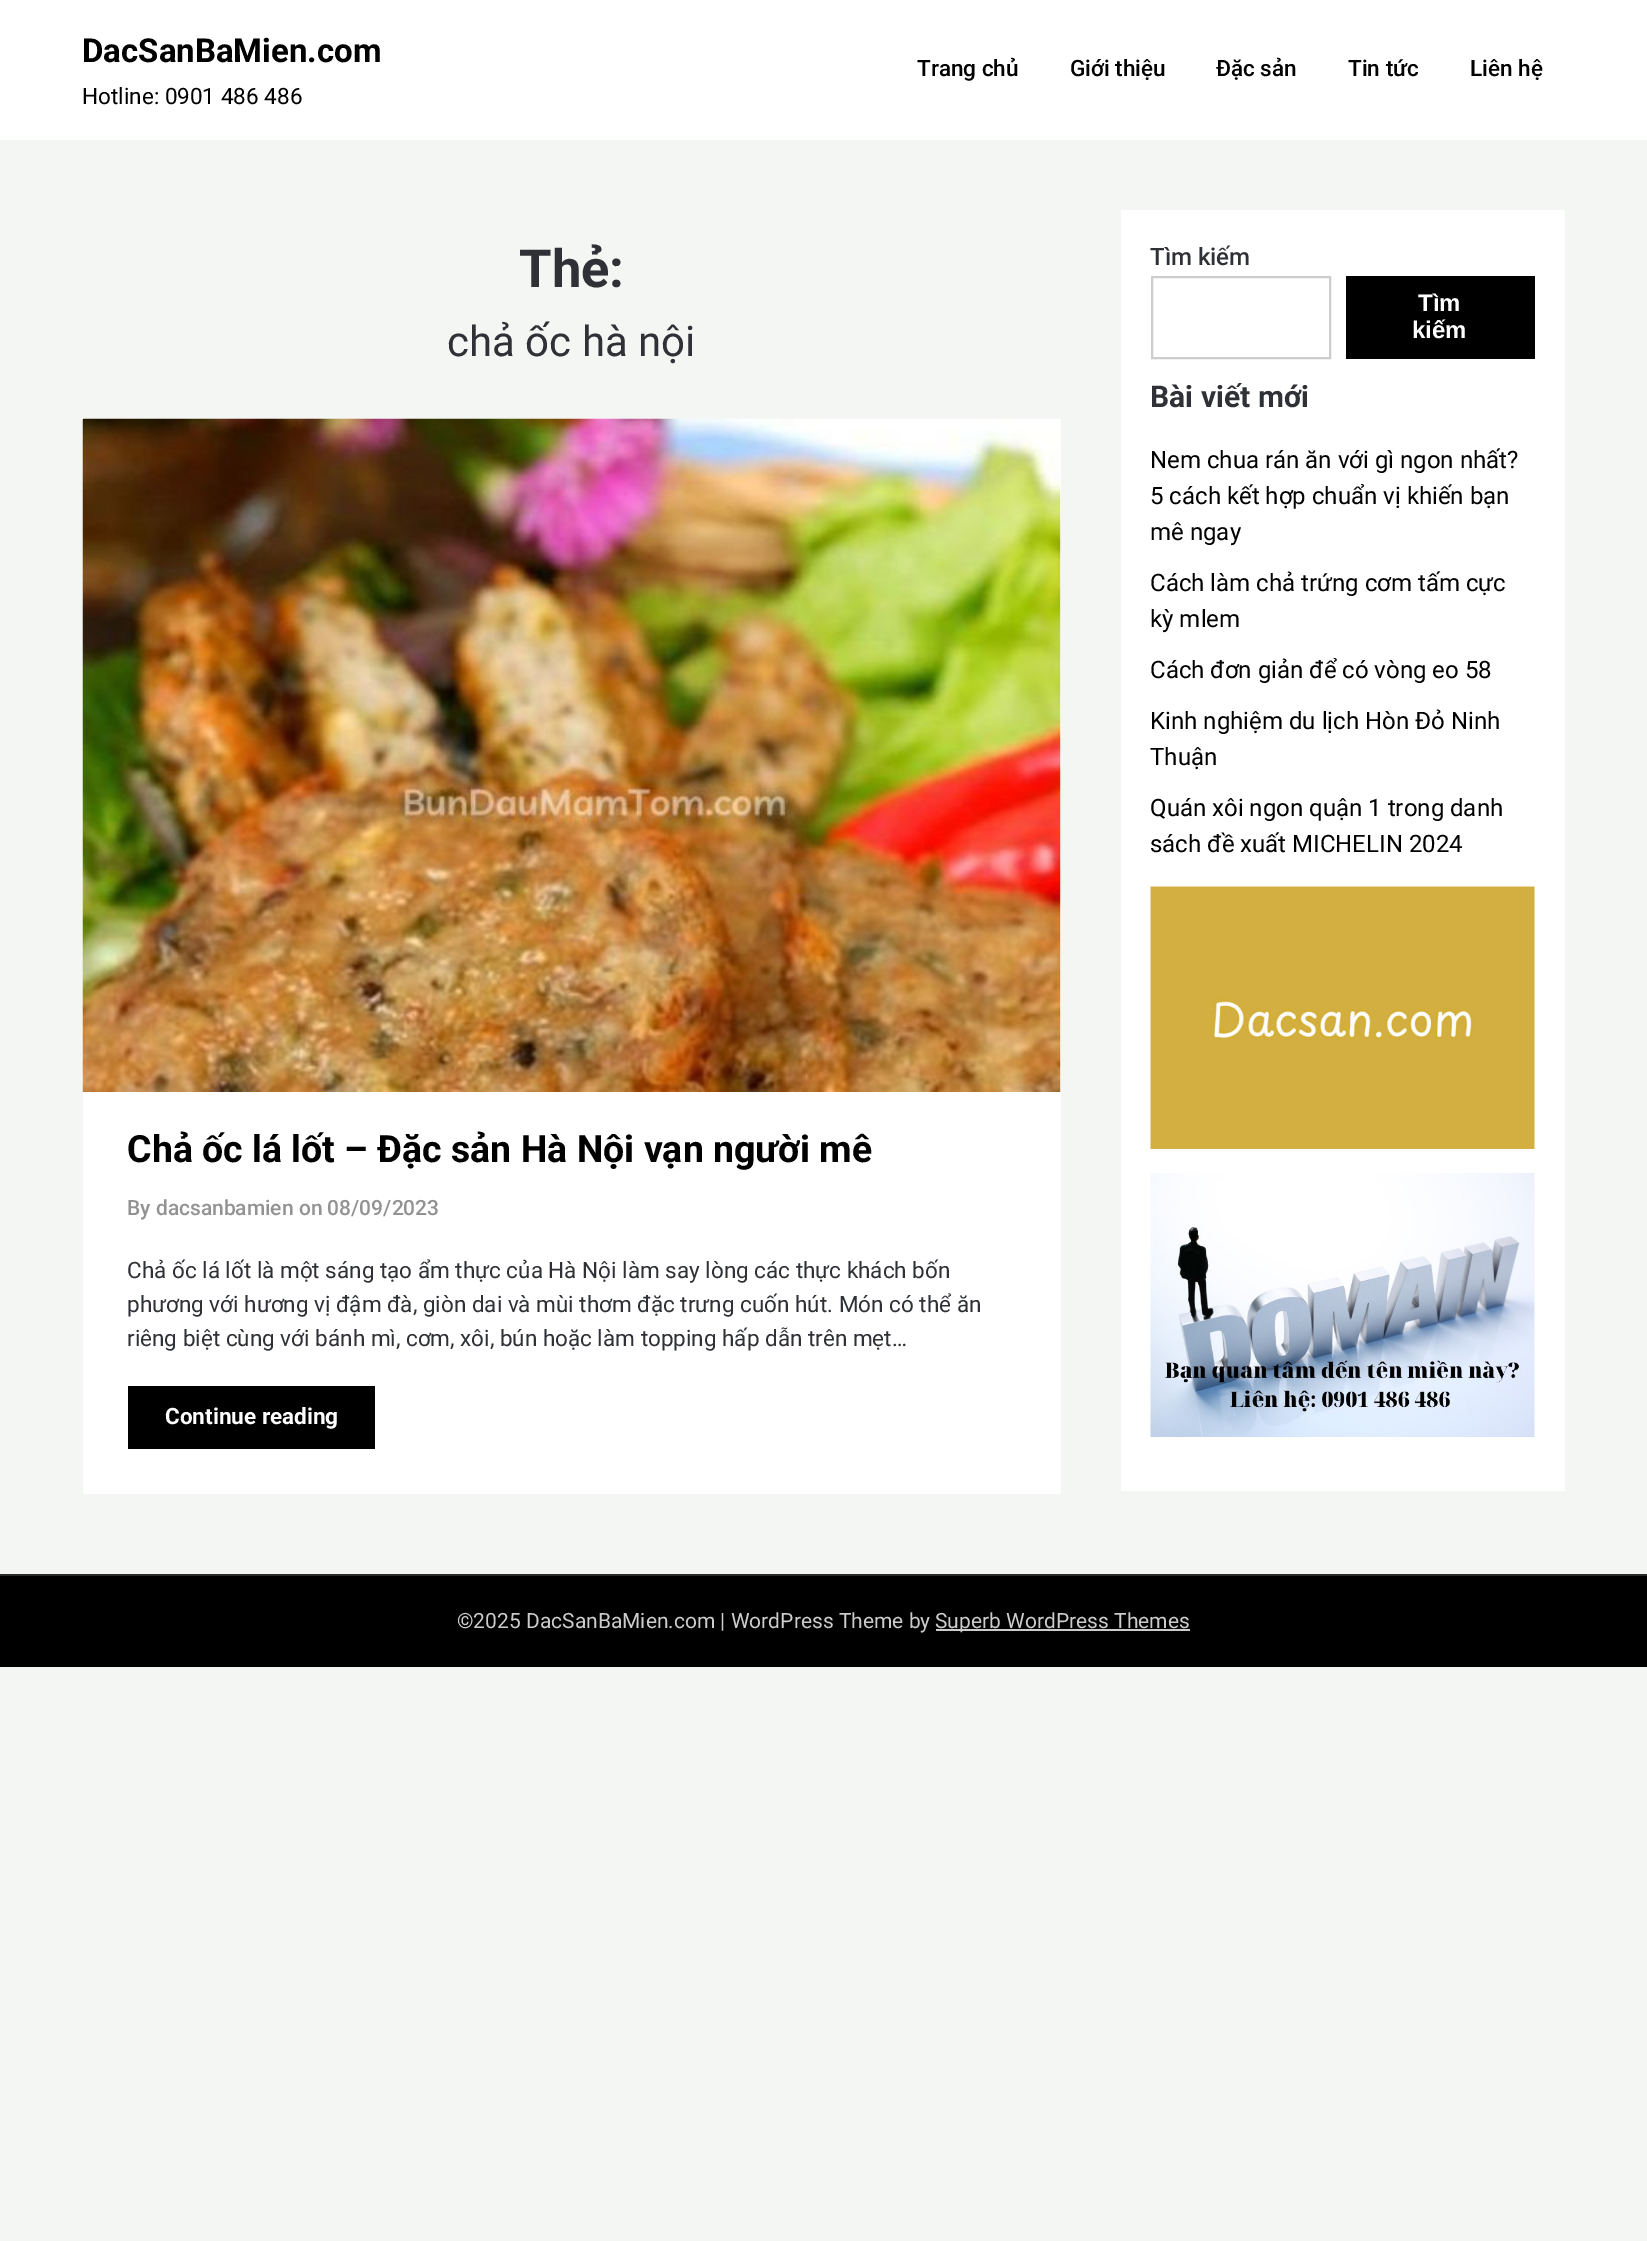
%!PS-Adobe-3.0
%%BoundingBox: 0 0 1647 2241
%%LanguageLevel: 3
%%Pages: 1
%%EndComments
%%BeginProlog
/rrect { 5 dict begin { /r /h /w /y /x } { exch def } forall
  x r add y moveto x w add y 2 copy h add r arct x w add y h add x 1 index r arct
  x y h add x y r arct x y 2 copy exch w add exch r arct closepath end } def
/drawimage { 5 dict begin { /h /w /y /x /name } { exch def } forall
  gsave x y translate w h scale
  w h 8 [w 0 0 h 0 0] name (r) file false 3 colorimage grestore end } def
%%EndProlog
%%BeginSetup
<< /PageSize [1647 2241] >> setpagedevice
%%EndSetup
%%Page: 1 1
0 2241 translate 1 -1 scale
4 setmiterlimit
0.957 0.965 0.953 setrgbcolor
0 0 1647 2241 rectfill
1 setgray
0 0 1647 140 rectfill
83 419 978 1075 1.5 rrect fill
(images/1.raw) 82 418 979 674 drawimage
0 setgray
128 1386 247 63 rectfill
1 setgray
1121 210 444 1281 rectfill
0.804 setgray
2 setlinewidth
1152 277 178 81 rectstroke
0 setgray
1346 276 189 83 rectfill
(images/2.raw) 1150 886 385 263 drawimage
(images/3.raw) 1150 1173 385 264 drawimage
0 1576 1647 91 rectfill
0.161 setgray
0 1574 1647 2 rectfill
0.8 setgray
936 1629 254 2 rectfill
/Roboto-Bold [33 0 0 -33 0 0] selectfont
0 setgray
82 62 moveto (DacSanBaMien.com) show
/Roboto-Regular [22.5 0 0 -22.5 0 0] selectfont
82 104 moveto (Hotline: 0901 486 486) show
/Roboto-Medium [22.5 0 0 -22.5 0 0] selectfont
917 76 moveto (Trang chủ) show
1070 76 moveto (Giới thiệu) show
1216 76 moveto (Đặc sản) show
1348 76 moveto (Tin tức) show
1470 76 moveto (Liên hệ) show
/Roboto-Bold [52.5 0 0 -52.5 0 0] selectfont
0.184 0.192 0.212 setrgbcolor
519 287 moveto (Thẻ:) show
/Roboto-Regular [42 0 0 -42 0 0] selectfont
447 356 moveto (chả ốc hà nội) show
/Roboto-Bold [37.5 0 0 -37.5 0 0] selectfont
0 setgray
127 1162 moveto (Chả ốc lá lốt – Đặc sản Hà Nội vạn người mê) show
/Roboto-Medium [21 0 0 -21 0 0] selectfont
0.573 setgray
127 1215 moveto (By dacsanbamien on 08/09/2023) show
/Roboto-Regular [22.5 0 0 -22.5 0 0] selectfont
0.184 0.192 0.212 setrgbcolor
127 1278 moveto (Chả ốc lá lốt là một sáng tạo ẩm thực của Hà Nội làm say lòng các thực khách bốn) show
127 1312 moveto (phương với hương vị đậm đà, giòn dai và mùi thơm đặc trưng cuốn hút. Món có thể ăn) show
127 1346 moveto (riêng biệt cùng với bánh mì, cơm, xôi, bún hoặc làm topping hấp dẫn trên mẹt…) show
/Roboto-Bold [22.5 0 0 -22.5 0 0] selectfont
1 setgray
165 1424 moveto (Continue reading) show
/Roboto-Medium [24 0 0 -24 0 0] selectfont
0.184 0.192 0.212 setrgbcolor
1150 265 moveto (Tìm kiếm) show
/LiberationSans-Bold [24 0 0 -24 0 0] selectfont
1 setgray
1418 311 moveto (Tìm) show
1412 338 moveto (kiếm) show
/Roboto-Bold [30 0 0 -30 0 0] selectfont
0.184 0.192 0.212 setrgbcolor
1150 407 moveto (Bài viết mới) show
/Roboto-Regular [24 0 0 -24 0 0] selectfont
0 setgray
1150 468 moveto (Nem chua rán ăn với gì ngon nhất?) show
1150 504 moveto (5 cách kết hợp chuẩn vị khiến bạn) show
1150 540 moveto (mê ngay) show
1150 591 moveto (Cách làm chả trứng cơm tấm cực) show
1150 627 moveto (kỳ mlem) show
1150 678 moveto (Cách đơn giản để có vòng eo 58) show
1150 729 moveto (Kinh nghiệm du lịch Hòn Đỏ Ninh) show
1150 765 moveto (Thuận) show
1150 816 moveto (Quán xôi ngon quận 1 trong danh) show
1150 852 moveto (sách đề xuất MICHELIN 2024) show
/Roboto-Regular [21 0 0 -21 0 0] selectfont
0.8 setgray
457 1628 moveto (©2025 DacSanBaMien.com | WordPress Theme by) show
935 1628 moveto (Superb WordPress Themes) show
showpage
%%EOF
